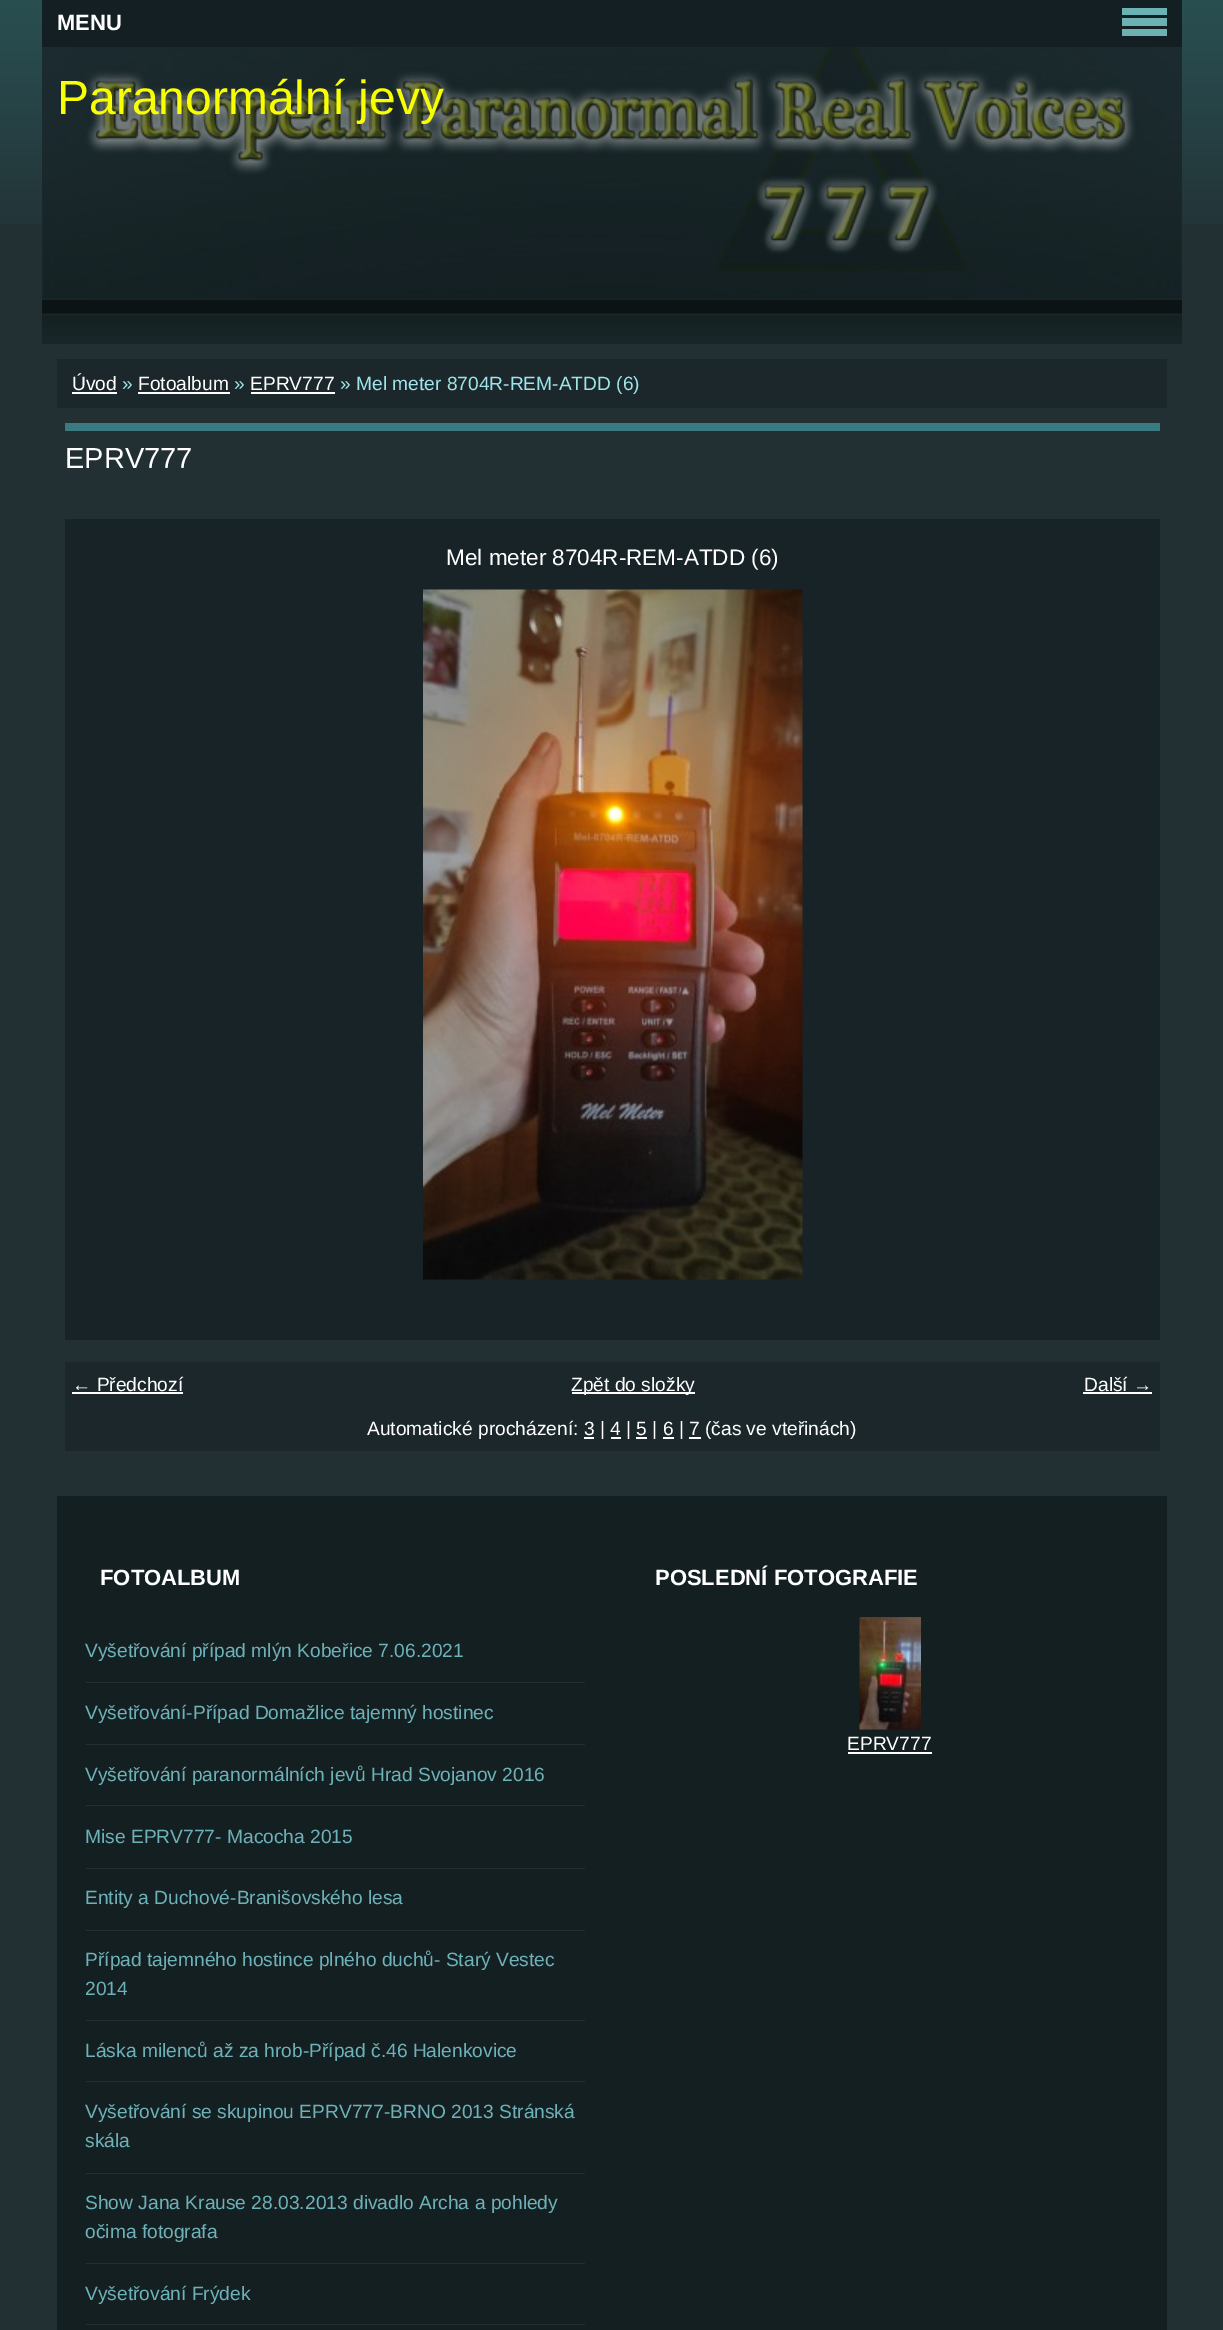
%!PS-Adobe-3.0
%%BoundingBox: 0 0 1223 2330
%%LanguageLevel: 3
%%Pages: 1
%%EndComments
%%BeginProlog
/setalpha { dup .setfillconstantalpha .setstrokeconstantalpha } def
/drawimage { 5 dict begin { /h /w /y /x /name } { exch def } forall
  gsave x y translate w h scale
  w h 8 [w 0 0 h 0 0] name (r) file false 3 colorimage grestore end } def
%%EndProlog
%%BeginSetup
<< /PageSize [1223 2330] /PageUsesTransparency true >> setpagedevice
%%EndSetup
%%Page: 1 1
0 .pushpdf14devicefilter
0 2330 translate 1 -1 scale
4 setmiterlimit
0.133 0.188 0.204 setrgbcolor
0 0 1223 2330 rectfill
(images/1.raw) 0 0 1223 224 drawimage
0.075 0.122 0.133 setrgbcolor
42 0 1140 47 rectfill
0.427 0.698 0.702 setrgbcolor
1122 8 45 7 rectfill
1122 18 45 8 rectfill
1122 29 45 7 rectfill
0.078 0.122 0.133 setrgbcolor
57 1496 1110 834 rectfill
0.133 0.188 0.204 setrgbcolor
86 1682 499 1 rectfill
86 1744 499 1 rectfill
86 1805 499 1 rectfill
86 1868 499 1 rectfill
86 1930 499 1 rectfill
86 2020 499 1 rectfill
86 2081 499 1 rectfill
86 2173 499 1 rectfill
86 2263 499 1 rectfill
86 2324 499 1 rectfill
(images/2.raw) 859 1617 62 113 drawimage
1 setgray
848 1752 84 2 rectfill
0.106 0.153 0.165 setrgbcolor
57 359 1110 49 rectfill
1 setgray
72 392 45 2 rectfill
138 392 92 2 rectfill
251 392 84 2 rectfill
0.224 0.482 0.506 setrgbcolor
65 423 1095 8 rectfill
0.094 0.137 0.153 setrgbcolor
65 519 1095 821 rectfill
(images/3.raw) 423 589 380 691 drawimage
0.106 0.153 0.165 setrgbcolor
65 1362 1095 89 rectfill
1 setgray
72 1392 111 2 rectfill
572 1392 123 2 rectfill
1083 1392 69 2 rectfill
584 1437 10 2 rectfill
611 1437 10 2 rectfill
636 1437 11 2 rectfill
663 1437 11 2 rectfill
689 1437 12 2 rectfill
(images/4.raw) 42 300 1140 37 drawimage
(images/5.raw) 42 47 1140 253 drawimage
0.6 setalpha
0.075 0.125 0.133 setrgbcolor
42 47 1140 297 rectfill
/LiberationSans-Bold [22 0 0 -22 0 0] selectfont
1 setalpha
1 setgray
57 30 moveto (MENU) show
100 1585 moveto (FOTOALBUM) show
/LiberationSans-Regular [19.2 0 0 -19.2 0 0] selectfont
0.427 0.698 0.722 setrgbcolor
85 1657 moveto (Vyšetřování případ mlýn Kobeřice 7.06.2021) show
85 1719 moveto (Vyšetřování-Případ Domažlice tajemný hostinec) show
85 1781 moveto (Vyšetřování paranormálních jevů Hrad Svojanov 2016) show
85 1843 moveto (Mise EPRV777- Macocha 2015) show
85 1904 moveto (Entity a Duchové-Branišovského lesa) show
85 1966 moveto (Případ tajemného hostince plného duchů- Starý Vestec) show
85 1995 moveto (2014) show
85 2057 moveto (Láska milenců až za hrob-Případ č.46 Halenkovice) show
85 2118 moveto (Vyšetřování se skupinou EPRV777-BRNO 2013 Stránská) show
85 2147 moveto (skála) show
85 2209 moveto (Show Jana Krause 28.03.2013 divadlo Archa a pohledy) show
85 2238 moveto (očima fotografa) show
85 2300 moveto (Vyšetřování Frýdek) show
/LiberationSans-Bold [22 0 0 -22 0 0] selectfont
1 setgray
655 1585 moveto (POSLEDNÍ FOTOGRAFIE) show
/LiberationSans-Regular [19.2 0 0 -19.2 0 0] selectfont
847 1750 moveto (EPRV777) show
72 390 moveto (Úvod) show
0.62 0.898 0.922 setrgbcolor
122 390 moveto (») show
1 setgray
138 390 moveto (Fotoalbum) show
0.62 0.898 0.922 setrgbcolor
234 390 moveto (») show
1 setgray
250 390 moveto (EPRV777) show
0.62 0.898 0.922 setrgbcolor
340 390 moveto (» Mel meter 8704R-REM-ATDD \(6\)) show
/LiberationSans-Regular [29 0 0 -29 0 0] selectfont
1 setgray
65 468 moveto (EPRV777) show
/LiberationSans-Regular [22.5 0 0 -22.5 0 0] selectfont
446 565 moveto (Mel meter 8704R-REM-ATDD \(6\)) show
/LiberationSans-Regular [19.2 0 0 -19.2 0 0] selectfont
72 1391 moveto (← Předchozí) show
571 1391 moveto (Zpět do složky) show
1084 1391 moveto (Další →) show
367 1435 moveto (Automatické procházení: 3 | 4 | 5 | 6 | 7 \(čas ve vteřinách\)) show
/LiberationSans-Regular [48 0 0 -48 0 0] selectfont
0.973 1 0 setrgbcolor
57 114 moveto (Paranormální jevy) show
.poppdf14devicefilter showpage
%%EOF
